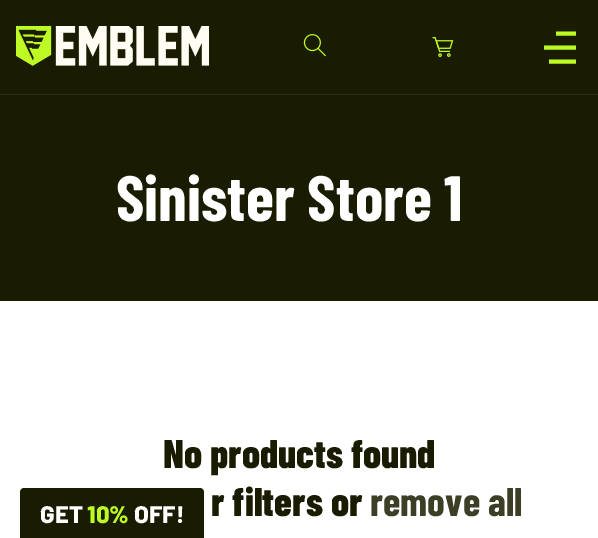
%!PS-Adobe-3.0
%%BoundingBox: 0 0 598 538
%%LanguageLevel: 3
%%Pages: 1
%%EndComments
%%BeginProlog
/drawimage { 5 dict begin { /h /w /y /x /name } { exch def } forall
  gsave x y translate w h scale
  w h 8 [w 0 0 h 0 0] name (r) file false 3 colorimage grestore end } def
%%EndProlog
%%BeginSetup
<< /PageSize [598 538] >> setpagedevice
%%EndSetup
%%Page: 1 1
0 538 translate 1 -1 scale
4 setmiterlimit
0.098 0.11 0 setrgbcolor
0 0 598 538 rectfill
0.169 0.18 0.078 setrgbcolor
0 94 598 1 rectfill
(images/1.raw) 16 26 193 40 drawimage
(images/2.raw) 303 34 23 23 drawimage
(images/3.raw) 432 37 22 20 drawimage
0.745 0.98 0.137 setrgbcolor
4 setlinewidth
newpath 556 33.5 moveto 576 33.5 lineto 544 47.5 moveto 576 47.5 lineto 549 61.5 moveto 576 61.5 lineto stroke
1 setgray
0 301 598 237 rectfill
0.098 0.11 0 setrgbcolor
newpath 24 488 moveto 200 488 lineto 202 488 204 490 204 492 curveto 204 538 lineto 20 538 lineto 20 492 lineto 20 490 22 488 24 488 curveto closepath fill
/Barlow-ExtraBold [24 0 0 -24 0 0] selectfont
1 setgray
40 523 moveto (GET) show
0.745 0.98 0.137 setrgbcolor
87 523 moveto (10%) show
1 setgray
134 523 moveto (OFF!) show
/BarlowCondensed-Bold [64 0 0 -64 0 0] selectfont
116 221 moveto (Sinister Store 1) show
/BarlowCondensed-ExtraBold [40 0 0 -40 0 0] selectfont
0.098 0.11 0 setrgbcolor
163 468 moveto (No products found) show
211 516 moveto (r filters or) show
/BarlowCondensed-Bold [40 0 0 -40 0 0] selectfont
0.235 0.243 0.149 setrgbcolor
370 516 moveto (remove all) show
showpage
%%EOF
